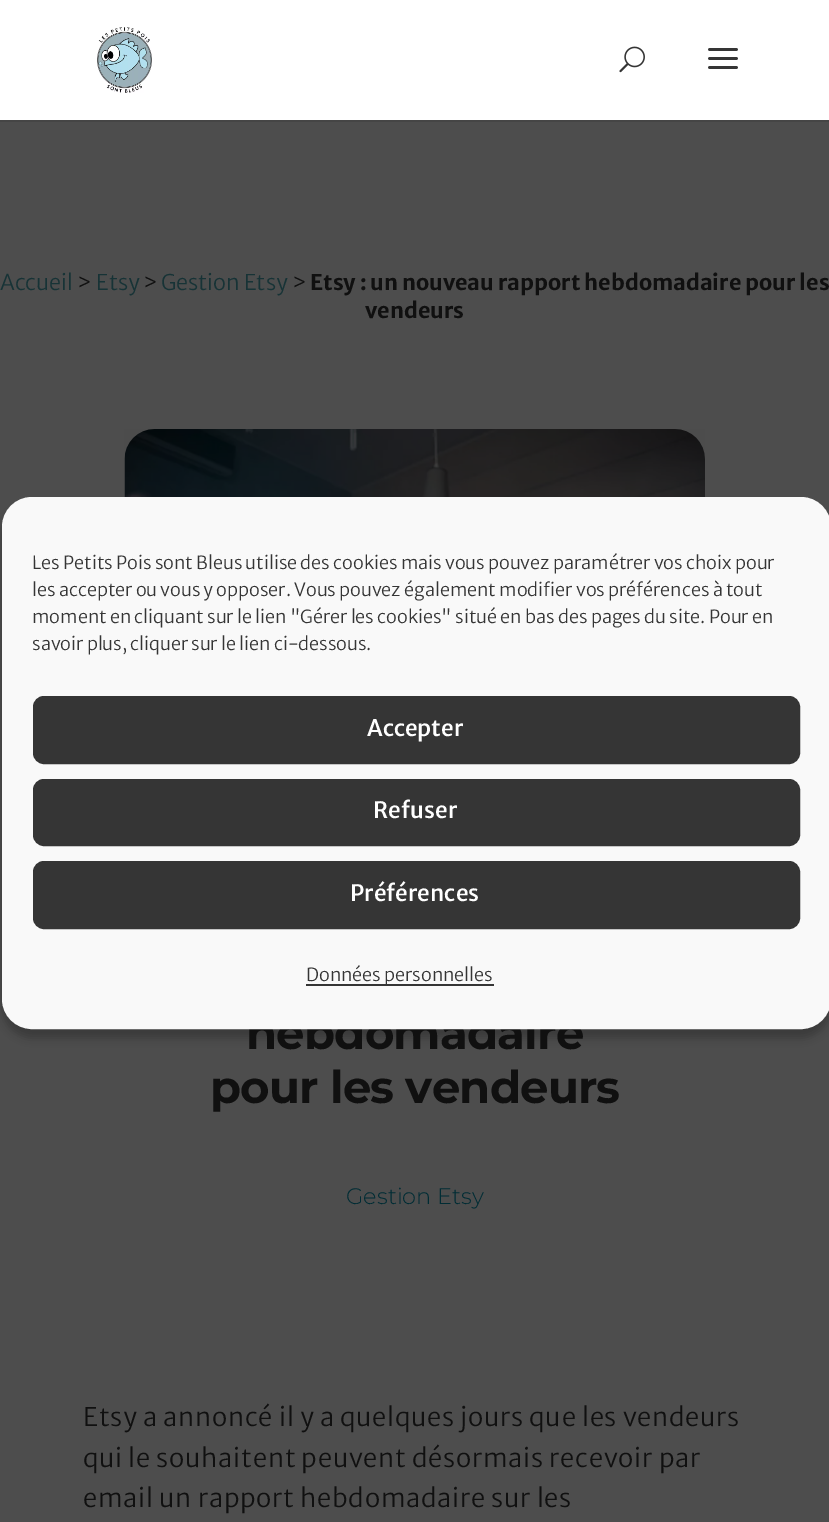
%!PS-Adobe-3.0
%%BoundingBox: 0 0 829 1522
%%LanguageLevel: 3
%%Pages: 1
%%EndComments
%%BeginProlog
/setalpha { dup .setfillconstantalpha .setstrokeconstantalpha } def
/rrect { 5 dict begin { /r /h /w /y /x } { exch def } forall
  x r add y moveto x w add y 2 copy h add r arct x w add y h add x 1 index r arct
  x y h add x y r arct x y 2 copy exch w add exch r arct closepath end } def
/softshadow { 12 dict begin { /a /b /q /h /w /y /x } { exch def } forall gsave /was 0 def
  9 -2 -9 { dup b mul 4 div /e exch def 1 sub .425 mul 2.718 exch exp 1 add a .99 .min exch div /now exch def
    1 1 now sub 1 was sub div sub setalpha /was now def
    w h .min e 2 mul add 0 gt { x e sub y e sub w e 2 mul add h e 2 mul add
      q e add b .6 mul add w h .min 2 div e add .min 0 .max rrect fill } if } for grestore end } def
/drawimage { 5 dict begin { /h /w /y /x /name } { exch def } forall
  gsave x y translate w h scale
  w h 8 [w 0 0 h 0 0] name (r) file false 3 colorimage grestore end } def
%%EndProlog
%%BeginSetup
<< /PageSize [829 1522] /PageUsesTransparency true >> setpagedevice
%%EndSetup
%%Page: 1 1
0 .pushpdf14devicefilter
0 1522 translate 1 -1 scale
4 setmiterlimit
0.302 setgray
0 0 829 1522 rectfill
0.271 setgray
newpath 0 120 moveto 0 122 lineto 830 122 lineto 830 2 lineto 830 120 lineto closepath fill
1 setgray
0 0 829 120 rectfill
(images/1.raw) 97 27 55 66 drawimage
(images/2.raw) 619 46 26 27 drawimage
(images/3.raw) 708 48 30 21 drawimage
(images/4.raw) 124 429 581 68 drawimage
gsave
newpath 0 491 moveto 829 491 lineto 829 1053 lineto 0 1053 lineto closepath 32 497 moveto 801 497 lineto 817.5 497 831 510.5 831 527 curveto 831 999 lineto 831 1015.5 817.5 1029 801 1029 curveto 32 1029 lineto 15.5 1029 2 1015.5 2 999 curveto 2 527 lineto 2 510.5 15.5 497 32 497 curveto closepath eoclip newpath
0 setgray
2 506 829 532 30 4.5 0.23 softshadow
grestore
/MerriweatherSans-Light [21.6 0 0 -21.6 0 0] selectfont
0.09 0.2 0.212 setrgbcolor
0 290 moveto (Accueil) show
0.063 setgray
77 290 moveto (>) show
0.09 0.2 0.212 setrgbcolor
96 290 moveto (Etsy) show
0.063 setgray
143 290 moveto (>) show
0.09 0.2 0.212 setrgbcolor
161 290 moveto (Gestion Etsy) show
0.063 setgray
292 290 moveto (>) show
/MerriweatherSans-Bold [21.6 0 0 -21.6 0 0] selectfont
310 290 moveto (Etsy : un nouveau rapport hebdomadaire pour les) show
365 318 moveto (vendeurs) show
/Montserrat-Bold [45 0 0 -45 0 0] selectfont
246 1049 moveto -0.75 0 (hebdomadaire) ashow
210 1103 moveto -0.75 0 (pour les vendeurs) ashow
/Montserrat-Light [22.5 0 0 -22.5 0 0] selectfont
0 0.173 0.204 setrgbcolor
346 1204 moveto (Gestion Etsy) show
/MerriweatherSans-Light [25.5 0 0 -25.5 0 0] selectfont
0.063 setgray
83 1426 moveto 0.77 0 (Etsy a annoncé il y a quelques jours que les vendeurs) ashow
83 1467 moveto 0.77 0 (qui le souhaitent peuvent désormais recevoir par) ashow
83 1507 moveto 0.77 0 (email un rapport hebdomadaire sur les) ashow
0.976 setgray
3 498 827 530 29 rrect gsave fill grestore
2 setlinewidth
stroke
/MerriweatherSans-Light [18 0 0 -18 0 0] selectfont
0.208 setgray
32 569 moveto (Les Petits Pois sont Bleus utilise des cookies mais vous pouvez paramétrer vos choix pour) show
32 596 moveto (les accepter ou vous y opposer. Vous pouvez également modifier vos préférences à tout) show
32 623 moveto (moment en cliquant sur le lien "Gérer les cookies" situé en bas des pages du site. Pour en) show
gsave
33 551 767 115 rectclip
32 650 moveto (savoir plus, cliquer sur le lien ci-dessous.) show
grestore
34 697 765 66 10 rrect gsave fill grestore
stroke
/MerriweatherSans-Medium [22.5 0 0 -22.5 0 0] selectfont
1 setgray
367 736 moveto (Accepter) show
0.208 setgray
34 780 765 65 10 rrect gsave fill grestore
stroke
1 setgray
373 818 moveto (Refuser) show
0.208 setgray
34 862 765 66 10 rrect gsave fill grestore
stroke
1 setgray
350 901 moveto (Préférences) show
0.208 setgray
306 984 188 2 rectfill
/MerriweatherSans-Light [18 0 0 -18 0 0] selectfont
306 981 moveto (Données personnelles) show
.poppdf14devicefilter showpage
%%EOF
